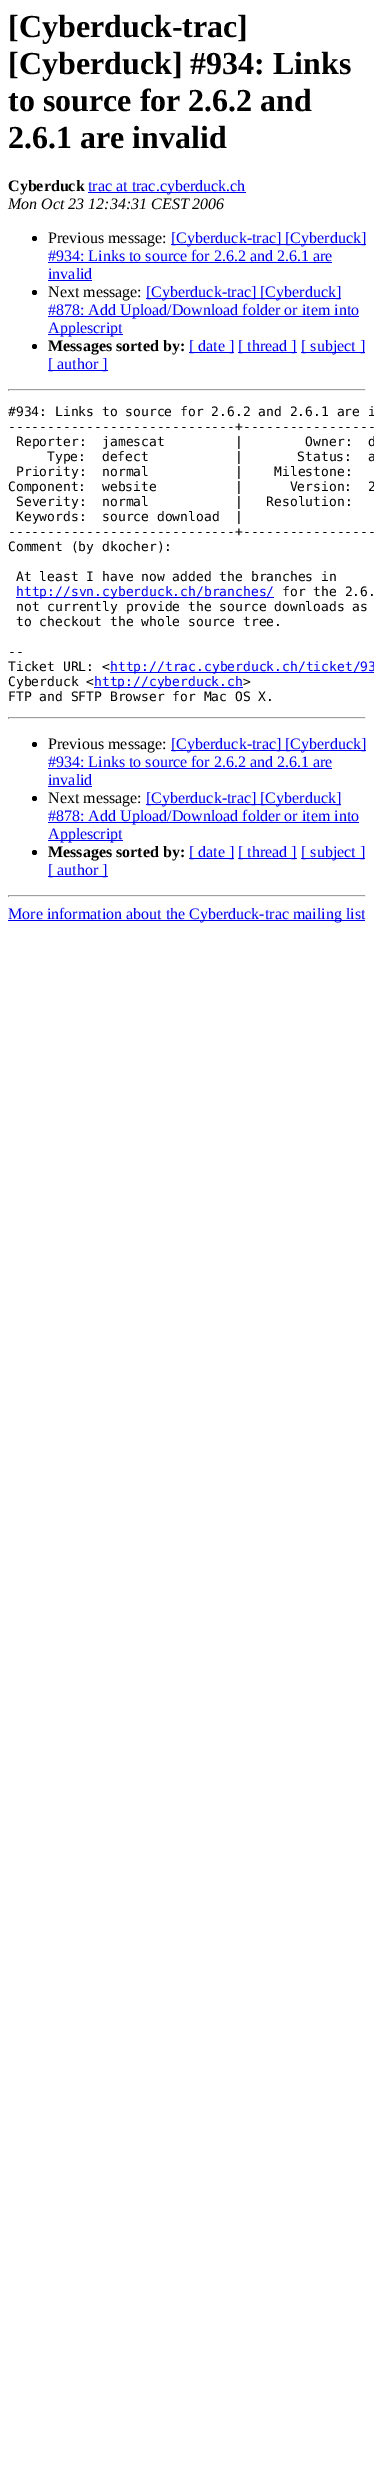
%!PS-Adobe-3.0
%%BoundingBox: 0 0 374 2480
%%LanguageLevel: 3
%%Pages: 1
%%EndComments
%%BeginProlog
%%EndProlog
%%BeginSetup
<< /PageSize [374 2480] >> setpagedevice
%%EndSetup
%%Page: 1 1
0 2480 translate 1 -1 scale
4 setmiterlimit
1 setgray
0 0 374 2480 rectfill
0 0 0.933 setrgbcolor
88 192 158 1 rectfill
0 setgray
newpath 34.5 238.5 2.5 0 360 arc closepath fill
0 0 0.933 setrgbcolor
171 244 195 1 rectfill
48 262 284 1 rectfill
48 280 44 1 rectfill
0 setgray
newpath 34.5 292.5 2.5 0 360 arc closepath fill
0 0 0.933 setrgbcolor
146 298 195 1 rectfill
48 316 311 1 rectfill
48 334 75 1 rectfill
0 setgray
newpath 34.5 346.5 2.5 0 360 arc closepath fill
0 0 0.933 setrgbcolor
189 352 45 1 rectfill
238 352 59 1 rectfill
301 352 64 1 rectfill
48 370 60 1 rectfill
0.624 setgray
8 389 358 1 rectfill
0.933 setgray
365 389 1 2 rectfill
8 390 358 1 rectfill
0.624 setgray
8 389 1 2 rectfill
0 0 0.933 setrgbcolor
16 597 258 1 rectfill
110 672 264 1 rectfill
94 687 149 1 rectfill
0.624 setgray
8 717 358 1 rectfill
0.933 setgray
365 717 1 2 rectfill
8 718 358 1 rectfill
0.624 setgray
8 717 1 2 rectfill
0 setgray
newpath 34.5 744.5 2.5 0 360 arc closepath fill
0 0 0.933 setrgbcolor
171 750 195 1 rectfill
48 768 284 1 rectfill
48 786 44 1 rectfill
0 setgray
newpath 34.5 798.5 2.5 0 360 arc closepath fill
0 0 0.933 setrgbcolor
146 804 195 1 rectfill
48 822 311 1 rectfill
48 840 75 1 rectfill
0 setgray
newpath 34.5 852.5 2.5 0 360 arc closepath fill
0 0 0.933 setrgbcolor
189 858 45 1 rectfill
238 858 59 1 rectfill
301 858 64 1 rectfill
48 876 60 1 rectfill
0.624 setgray
8 895 358 1 rectfill
0.933 setgray
365 895 1 2 rectfill
8 896 358 1 rectfill
0.624 setgray
8 895 1 2 rectfill
0 0 0.933 setrgbcolor
8 920 357 1 rectfill
/LiberationSerif-Bold [32 0 0 -32 0 0] selectfont
0 setgray
8 37 moveto ([Cyberduck-trac]) show
8 74 moveto ([Cyberduck] #934: Links) show
8 111 moveto (to source for 2.6.2 and) show
8 148 moveto (2.6.1 are invalid) show
/LiberationSerif-Bold [16 0 0 -16 0 0] selectfont
8 191 moveto (Cyberduck) show
/LiberationSerif-Regular [16 0 0 -16 0 0] selectfont
0 0 0.933 setrgbcolor
88 191 moveto (trac at trac.cyberduck.ch) show
/LiberationSerif-Italic [16 0 0 -16 0 0] selectfont
0 setgray
8 209 moveto (Mon Oct 23 12:34:31 CEST 2006) show
/LiberationSerif-Regular [16 0 0 -16 0 0] selectfont
48 243 moveto (Previous message:) show
0 0 0.933 setrgbcolor
171 243 moveto ([Cyberduck-trac] [Cyberduck]) show
48 261 moveto (#934: Links to source for 2.6.2 and 2.6.1 are) show
48 279 moveto (invalid) show
0 setgray
48 297 moveto (Next message:) show
0 0 0.933 setrgbcolor
146 297 moveto ([Cyberduck-trac] [Cyberduck]) show
48 315 moveto (#878: Add Upload/Download folder or item into) show
48 333 moveto (Applescript) show
/LiberationSerif-Bold [16 0 0 -16 0 0] selectfont
0 setgray
48 351 moveto (Messages sorted by:) show
/LiberationSerif-Regular [16 0 0 -16 0 0] selectfont
0 0 0.933 setrgbcolor
189 351 moveto ([ date ]) show
238 351 moveto ([ thread ]) show
301 351 moveto ([ subject ]) show
48 369 moveto ([ author ]) show
/DejaVuSansMono-Regular [13 0 0 -13 0 0] selectfont
0 setgray
8 416 moveto (#934: Links to source for 2.6.2 and 2.6.1 are i) show
8 431 moveto (-----------------------------+-----------------) show
16 446 moveto (Reporter:  jamescat         |        Owner:  d) show
47 461 moveto (Type:  defect           |       Status:  a) show
16 476 moveto (Priority:  normal           |    Milestone:) show
8 491 moveto (Component:  website          |      Version:  2) show
16 506 moveto (Severity:  normal           |   Resolution:) show
16 521 moveto (Keywords:  source download  |) show
8 536 moveto (-----------------------------+-----------------) show
8 551 moveto (Comment \(by dkocher\):) show
16 581 moveto (At least I have now added the branches in) show
0 0 0.933 setrgbcolor
16 596 moveto (http://svn.cyberduck.ch/branches/) show
0 setgray
282 596 moveto (for the 2.6.) show
16 611 moveto (not currently provide the source downloads as) show
16 626 moveto (to checkout the whole source tree.) show
8 656 moveto (--) show
8 671 moveto (Ticket URL: <) show
0 0 0.933 setrgbcolor
110 671 moveto (http://trac.cyberduck.ch/ticket/93) show
0 setgray
8 686 moveto (Cyberduck <) show
0 0 0.933 setrgbcolor
94 686 moveto (http://cyberduck.ch) show
0 setgray
243 686 moveto (>) show
8 701 moveto (FTP and SFTP Browser for Mac OS X.) show
/LiberationSerif-Regular [16 0 0 -16 0 0] selectfont
48 749 moveto (Previous message:) show
0 0 0.933 setrgbcolor
171 749 moveto ([Cyberduck-trac] [Cyberduck]) show
48 767 moveto (#934: Links to source for 2.6.2 and 2.6.1 are) show
48 785 moveto (invalid) show
0 setgray
48 803 moveto (Next message:) show
0 0 0.933 setrgbcolor
146 803 moveto ([Cyberduck-trac] [Cyberduck]) show
48 821 moveto (#878: Add Upload/Download folder or item into) show
48 839 moveto (Applescript) show
/LiberationSerif-Bold [16 0 0 -16 0 0] selectfont
0 setgray
48 857 moveto (Messages sorted by:) show
/LiberationSerif-Regular [16 0 0 -16 0 0] selectfont
0 0 0.933 setrgbcolor
189 857 moveto ([ date ]) show
238 857 moveto ([ thread ]) show
301 857 moveto ([ subject ]) show
48 875 moveto ([ author ]) show
8 919 moveto (More information about the Cyberduck-trac mailing list) show
showpage
%%EOF
